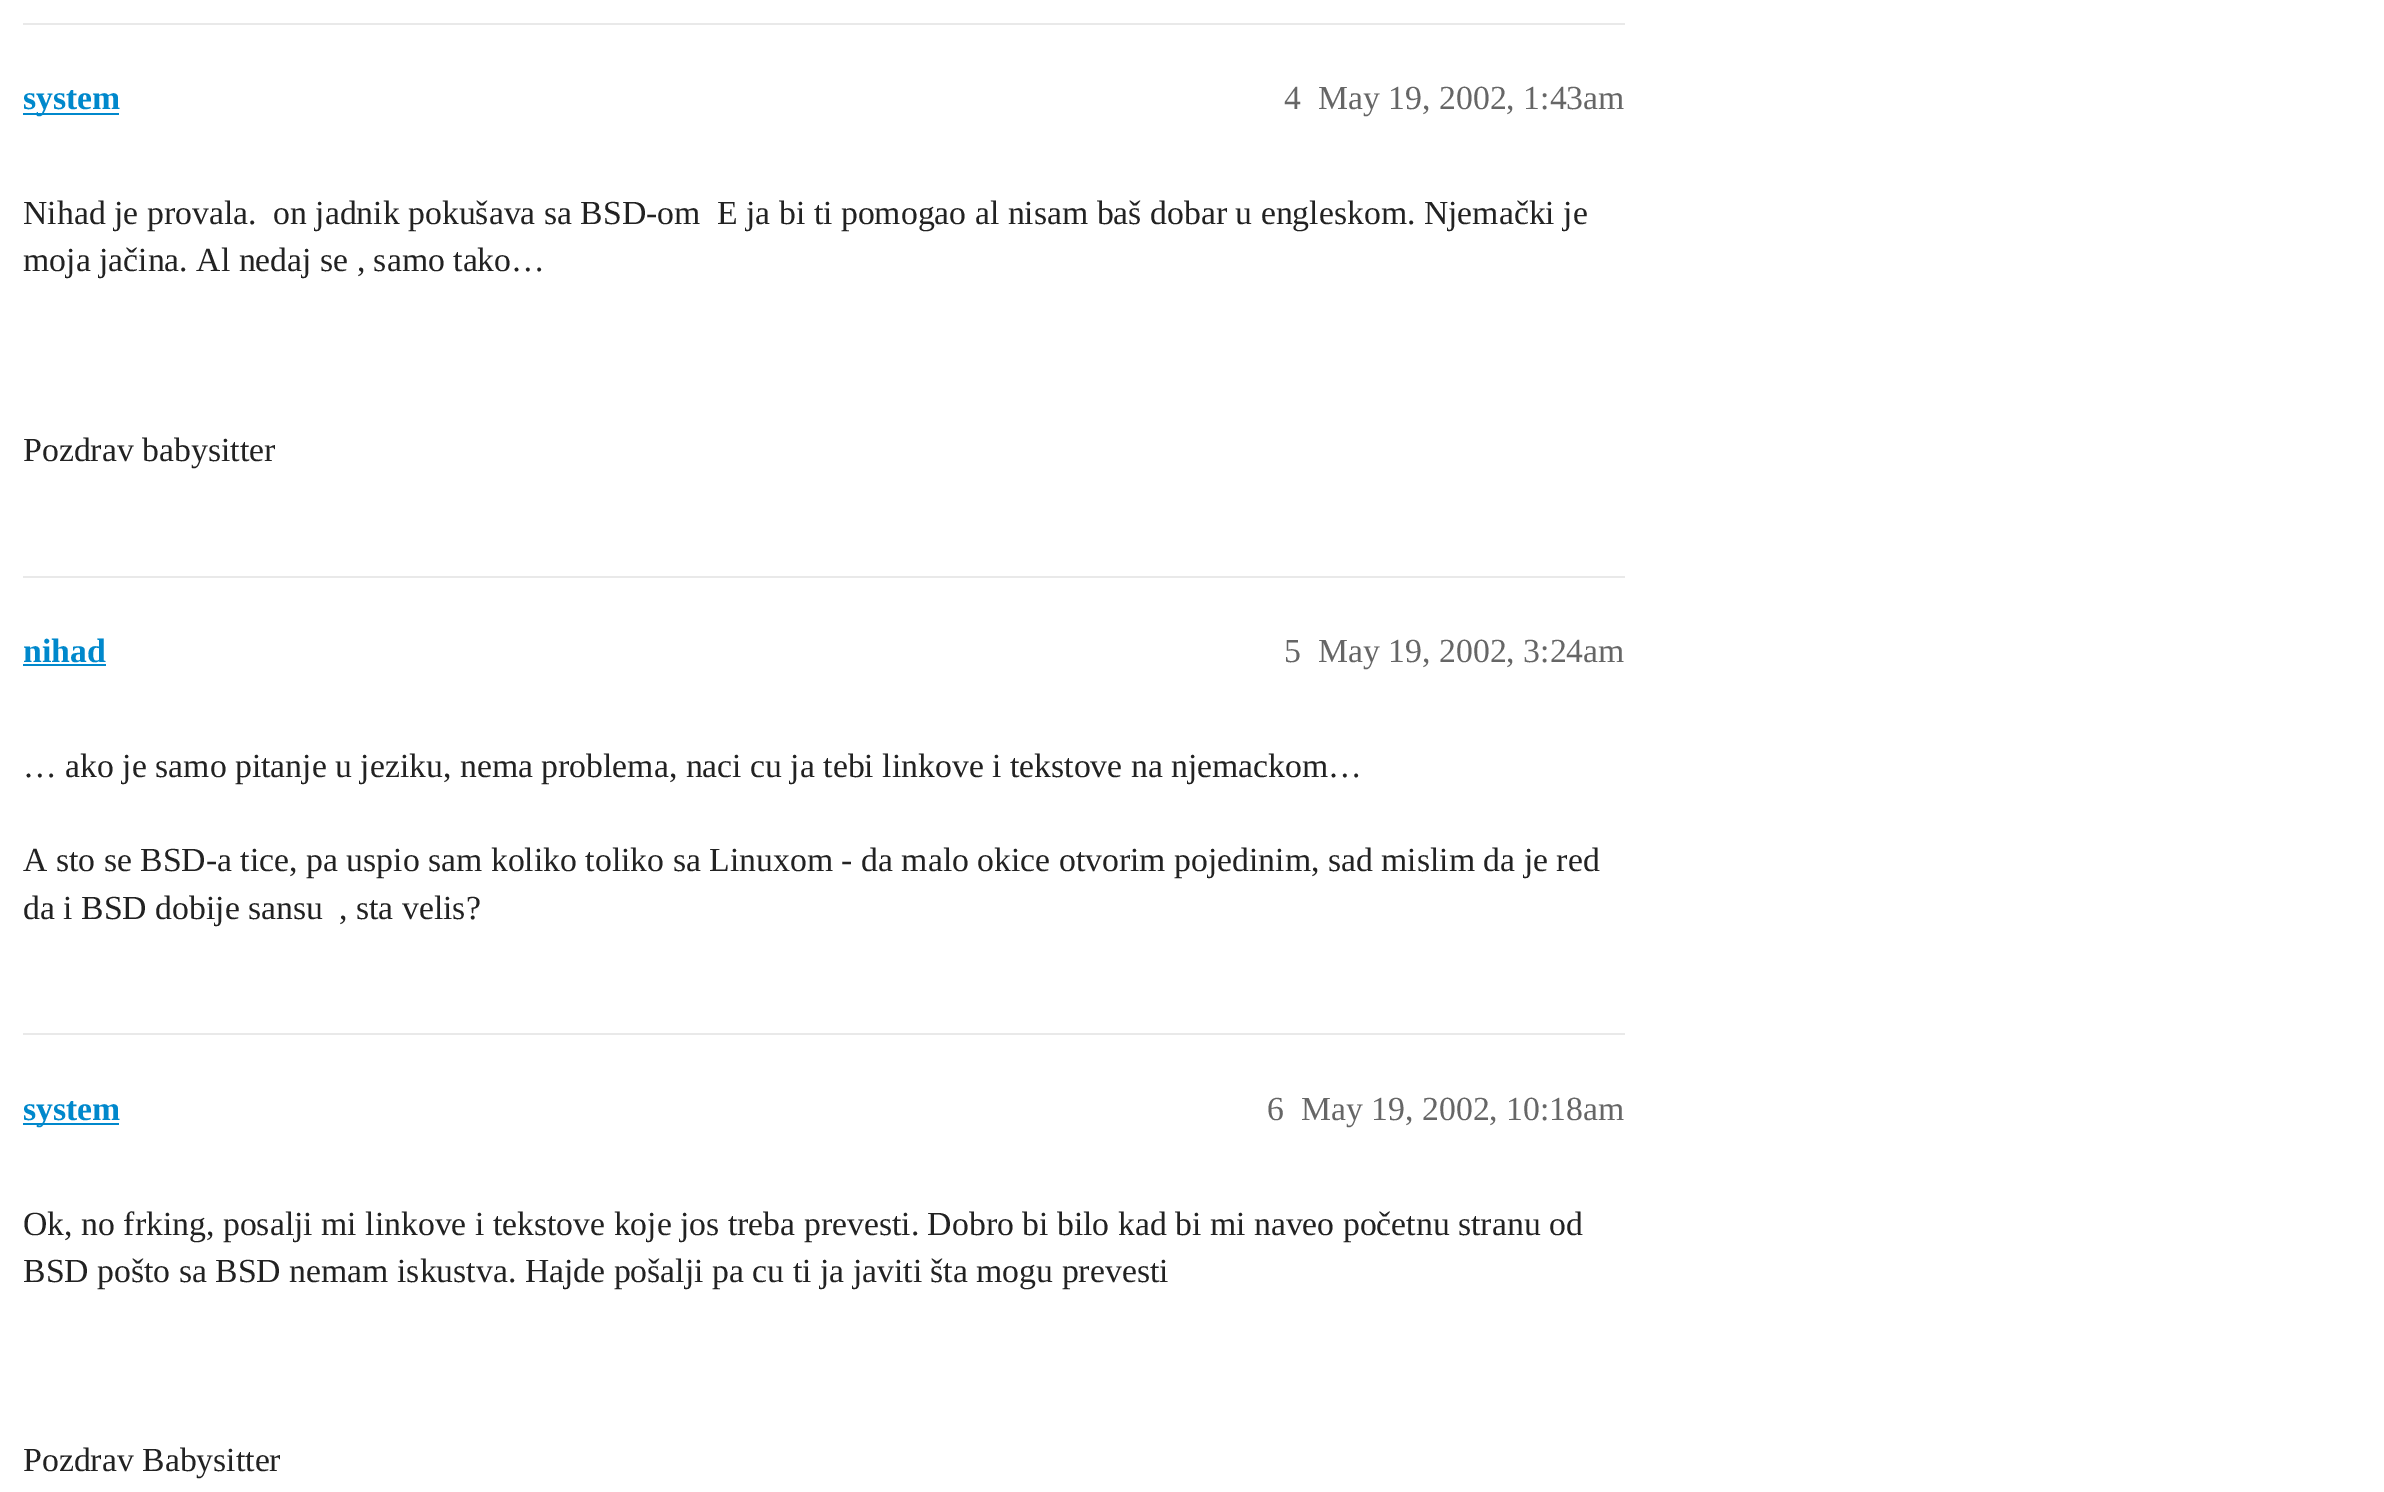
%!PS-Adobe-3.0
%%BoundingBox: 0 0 2384 1492
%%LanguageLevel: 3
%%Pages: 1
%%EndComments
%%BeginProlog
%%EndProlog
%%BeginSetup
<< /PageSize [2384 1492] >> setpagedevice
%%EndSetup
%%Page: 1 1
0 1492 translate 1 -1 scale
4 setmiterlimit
1 setgray
0 0 2384 1492 rectfill
0.914 setgray
23 23 1602 2 rectfill
0 0.533 0.8 setrgbcolor
23 113 96 2 rectfill
0.914 setgray
23 576 1602 2 rectfill
0 0.533 0.8 setrgbcolor
23 664 83 2 rectfill
0.914 setgray
23 1033 1602 2 rectfill
0 0.533 0.8 setrgbcolor
23 1123 96 2 rectfill
/LiberationSerif-Bold [33.75 0 0 -33.75 0 0] selectfont
23 109 moveto (system) show
/LiberationSerif-Regular [33.75 0 0 -33.75 0 0] selectfont
0.4 setgray
1284 109 moveto (4) show
1318 109 moveto (May 19, 2002, 1:43am) show
0.133 setgray
23 224 moveto (Nihad je provala.) show
273 224 moveto (on jadnik pokušava sa BSD-om) show
717 224 moveto (E ja bi ti pomogao al nisam baš dobar u engleskom. Njemački je) show
23 271 moveto (moja jačina. Al nedaj se , samo tako…) show
23 461 moveto (Pozdrav babysitter) show
/LiberationSerif-Bold [33.75 0 0 -33.75 0 0] selectfont
0 0.533 0.8 setrgbcolor
23 662 moveto (nihad) show
/LiberationSerif-Regular [33.75 0 0 -33.75 0 0] selectfont
0.4 setgray
1284 662 moveto (5) show
1318 662 moveto (May 19, 2002, 3:24am) show
0.133 setgray
23 777 moveto (… ako je samo pitanje u jeziku, nema problema, naci cu ja tebi linkove i tekstove na njemackom…) show
23 871 moveto (A sto se BSD-a tice, pa uspio sam koliko toliko sa Linuxom - da malo okice otvorim pojedinim, sad mislim da je red) show
23 919 moveto (da i BSD dobije sansu) show
339 919 moveto (, sta velis?) show
/LiberationSerif-Bold [33.75 0 0 -33.75 0 0] selectfont
0 0.533 0.8 setrgbcolor
23 1120 moveto (system) show
/LiberationSerif-Regular [33.75 0 0 -33.75 0 0] selectfont
0.4 setgray
1267 1120 moveto (6) show
1301 1120 moveto (May 19, 2002, 10:18am) show
0.133 setgray
23 1235 moveto (Ok, no frking, posalji mi linkove i tekstove koje jos treba prevesti. Dobro bi bilo kad bi mi naveo početnu stranu od) show
23 1282 moveto (BSD pošto sa BSD nemam iskustva. Hajde pošalji pa cu ti ja javiti šta mogu prevesti) show
23 1471 moveto (Pozdrav Babysitter) show
showpage
%%EOF
